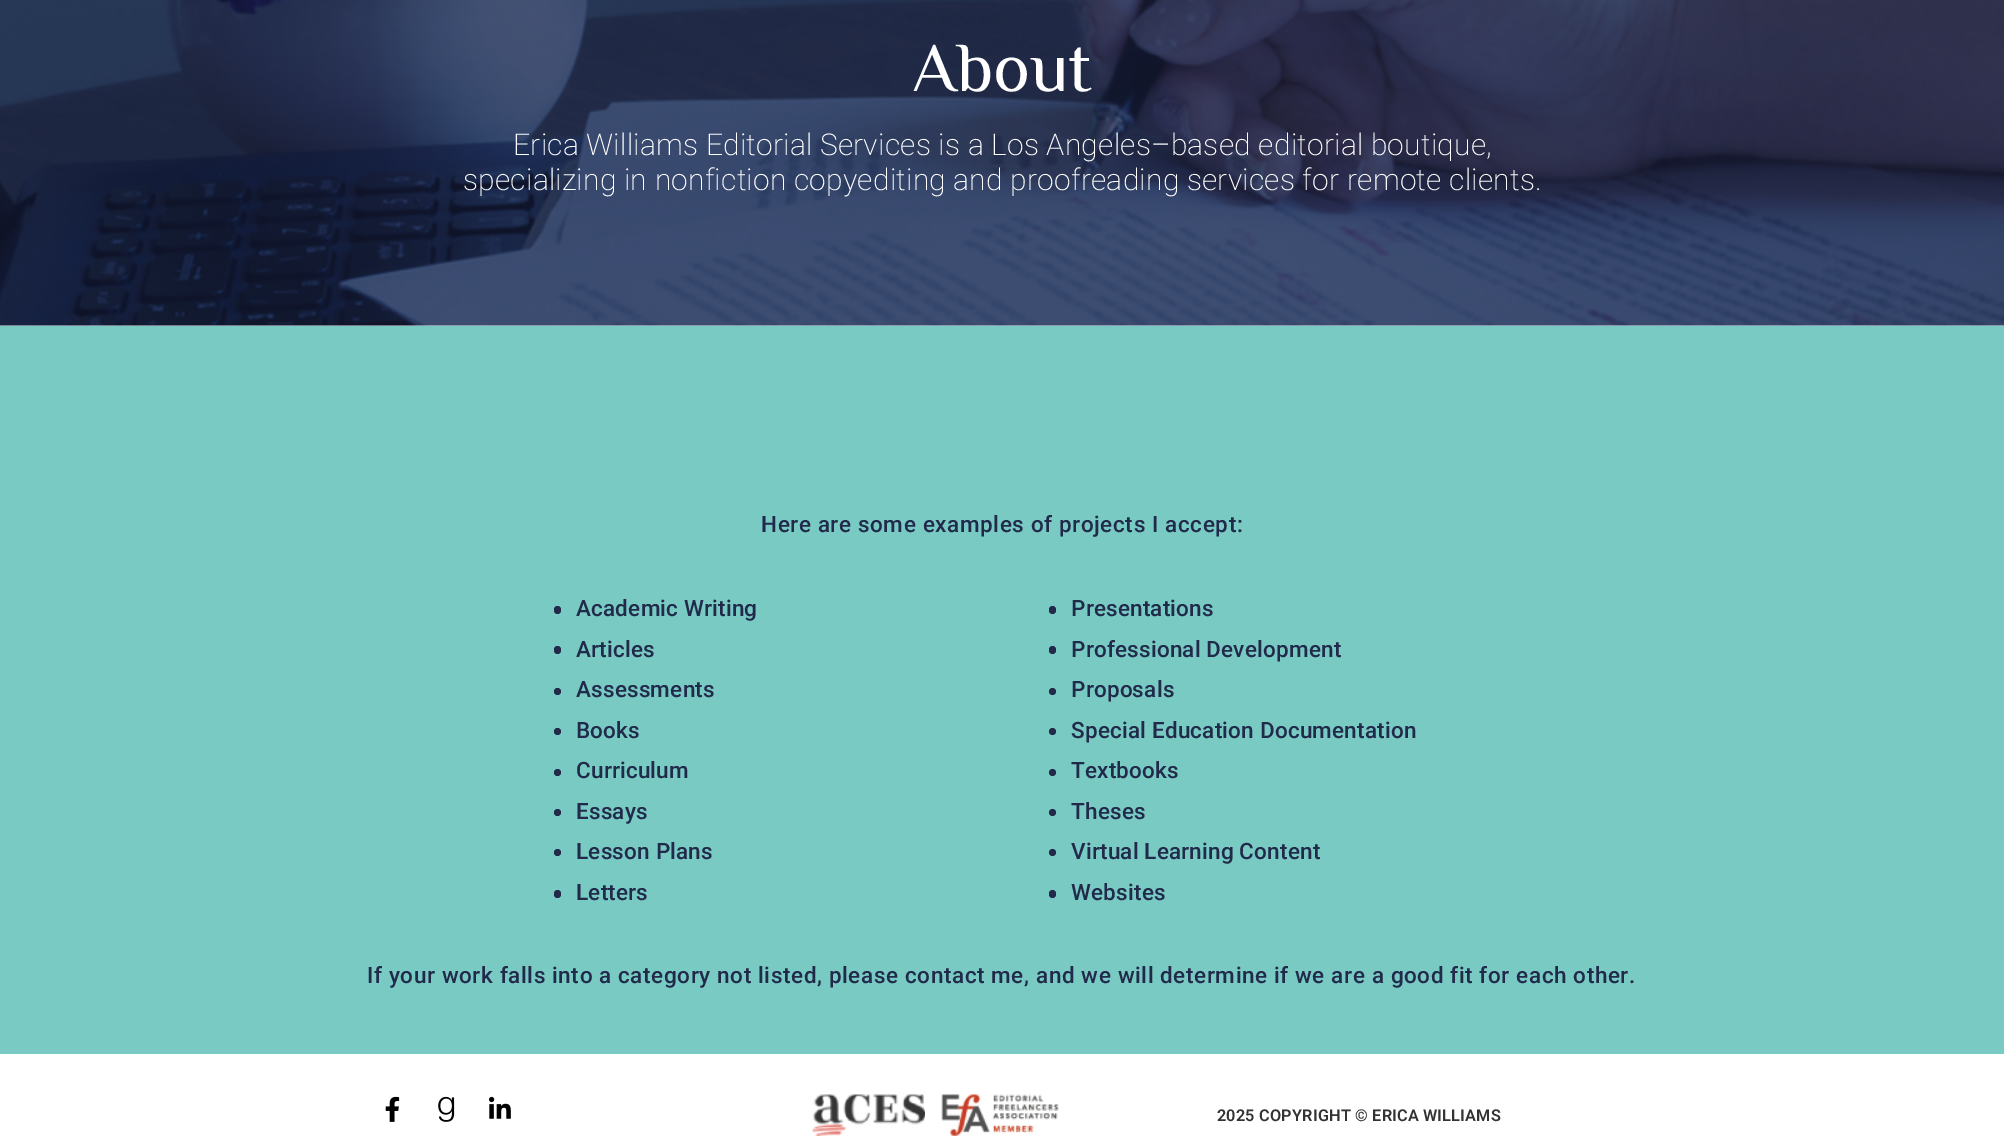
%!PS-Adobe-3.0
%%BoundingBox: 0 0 2004 1146
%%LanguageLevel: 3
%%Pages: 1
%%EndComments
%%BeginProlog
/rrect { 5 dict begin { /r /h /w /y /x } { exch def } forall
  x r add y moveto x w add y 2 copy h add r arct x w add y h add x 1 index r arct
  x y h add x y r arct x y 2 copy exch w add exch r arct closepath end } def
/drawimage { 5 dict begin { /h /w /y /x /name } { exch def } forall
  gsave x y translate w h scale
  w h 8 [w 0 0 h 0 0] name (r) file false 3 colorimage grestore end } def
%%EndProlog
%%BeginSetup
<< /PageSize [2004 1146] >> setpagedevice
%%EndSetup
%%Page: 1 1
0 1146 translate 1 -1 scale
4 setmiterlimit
1 setgray
0 0 2004 1146 rectfill
(images/1.raw) 0 0 2004 326 drawimage
0.471 0.792 0.765 setrgbcolor
0 326 2004 728 rectfill
0.129 0.165 0.29 setrgbcolor
554 606 7 8 3.5 rrect fill
554 646 7 8 3.5 rrect fill
newpath 557.5 691.5 3.5 0 360 arc closepath fill
newpath 557.5 731.5 3.5 0 360 arc closepath fill
newpath 557.5 772.5 3.5 0 360 arc closepath fill
newpath 557.5 812.5 3.5 0 360 arc closepath fill
newpath 557.5 852.5 3.5 0 360 arc closepath fill
554 890 7 8 3.5 rrect fill
1049 606 7 8 3.5 rrect fill
1049 646 7 8 3.5 rrect fill
newpath 1052.5 691.5 3.5 0 360 arc closepath fill
newpath 1052.5 731.5 3.5 0 360 arc closepath fill
newpath 1052.5 772.5 3.5 0 360 arc closepath fill
newpath 1052.5 812.5 3.5 0 360 arc closepath fill
newpath 1052.5 852.5 3.5 0 360 arc closepath fill
1049 890 7 8 3.5 rrect fill
(images/2.raw) 385 1096 15 26 drawimage
(images/3.raw) 438 1096 17 26 drawimage
(images/4.raw) 489 1096 22 23 drawimage
(images/5.raw) 812 1094 113 42 drawimage
(images/6.raw) 941 1094 118 42 drawimage
/Philosopher-Regular [70 0 0 -70 0 0] selectfont
1 setgray
912 91 moveto 0.2 0 (About) ashow
/Roboto-ExtraLight [30 0 0 -30 0 0] selectfont
513 155 moveto 0.2 0 (Erica Williams Editorial Services is a Los Angeles–based editorial boutique,) ashow
463 190 moveto 0.2 0 (specializing in nonfiction copyediting and proofreading services for remote clients.) ashow
/Roboto-Medium [22.5 0 0 -22.5 0 0] selectfont
0.129 0.165 0.29 setrgbcolor
761 532 moveto 0.62 0 (Here are some examples of projects I accept:) ashow
576 616 moveto 0.2 0 (Academic Writing) ashow
576 657 moveto 0.2 0 (Articles) ashow
576 697 moveto 0.2 0 (Assessments) ashow
576 738 moveto 0.2 0 (Books) ashow
576 778 moveto 0.2 0 (Curriculum) ashow
576 819 moveto 0.2 0 (Essays) ashow
576 859 moveto 0.2 0 (Lesson Plans) ashow
576 900 moveto 0.2 0 (Letters) ashow
1071 616 moveto 0.2 0 (Presentations) ashow
1071 657 moveto 0.2 0 (Professional Development) ashow
1071 697 moveto 0.2 0 (Proposals) ashow
1071 738 moveto 0.2 0 (Special Education Documentation) ashow
1071 778 moveto 0.2 0 (Textbooks) ashow
1071 819 moveto 0.2 0 (Theses) ashow
1071 859 moveto 0.2 0 (Virtual Learning Content) ashow
1071 900 moveto 0.2 0 (Websites) ashow
367 983 moveto 0.62 0 (If your work falls into a category not listed, please contact me, and we will determine if we are a good fit for each other.) ashow
/Roboto-SemiBold [16.25 0 0 -16.25 0 0] selectfont
0.2 setgray
1217 1121 moveto 0.2 0 (2025 COPYRIGHT © ERICA WILLIAMS) ashow
showpage
%%EOF
